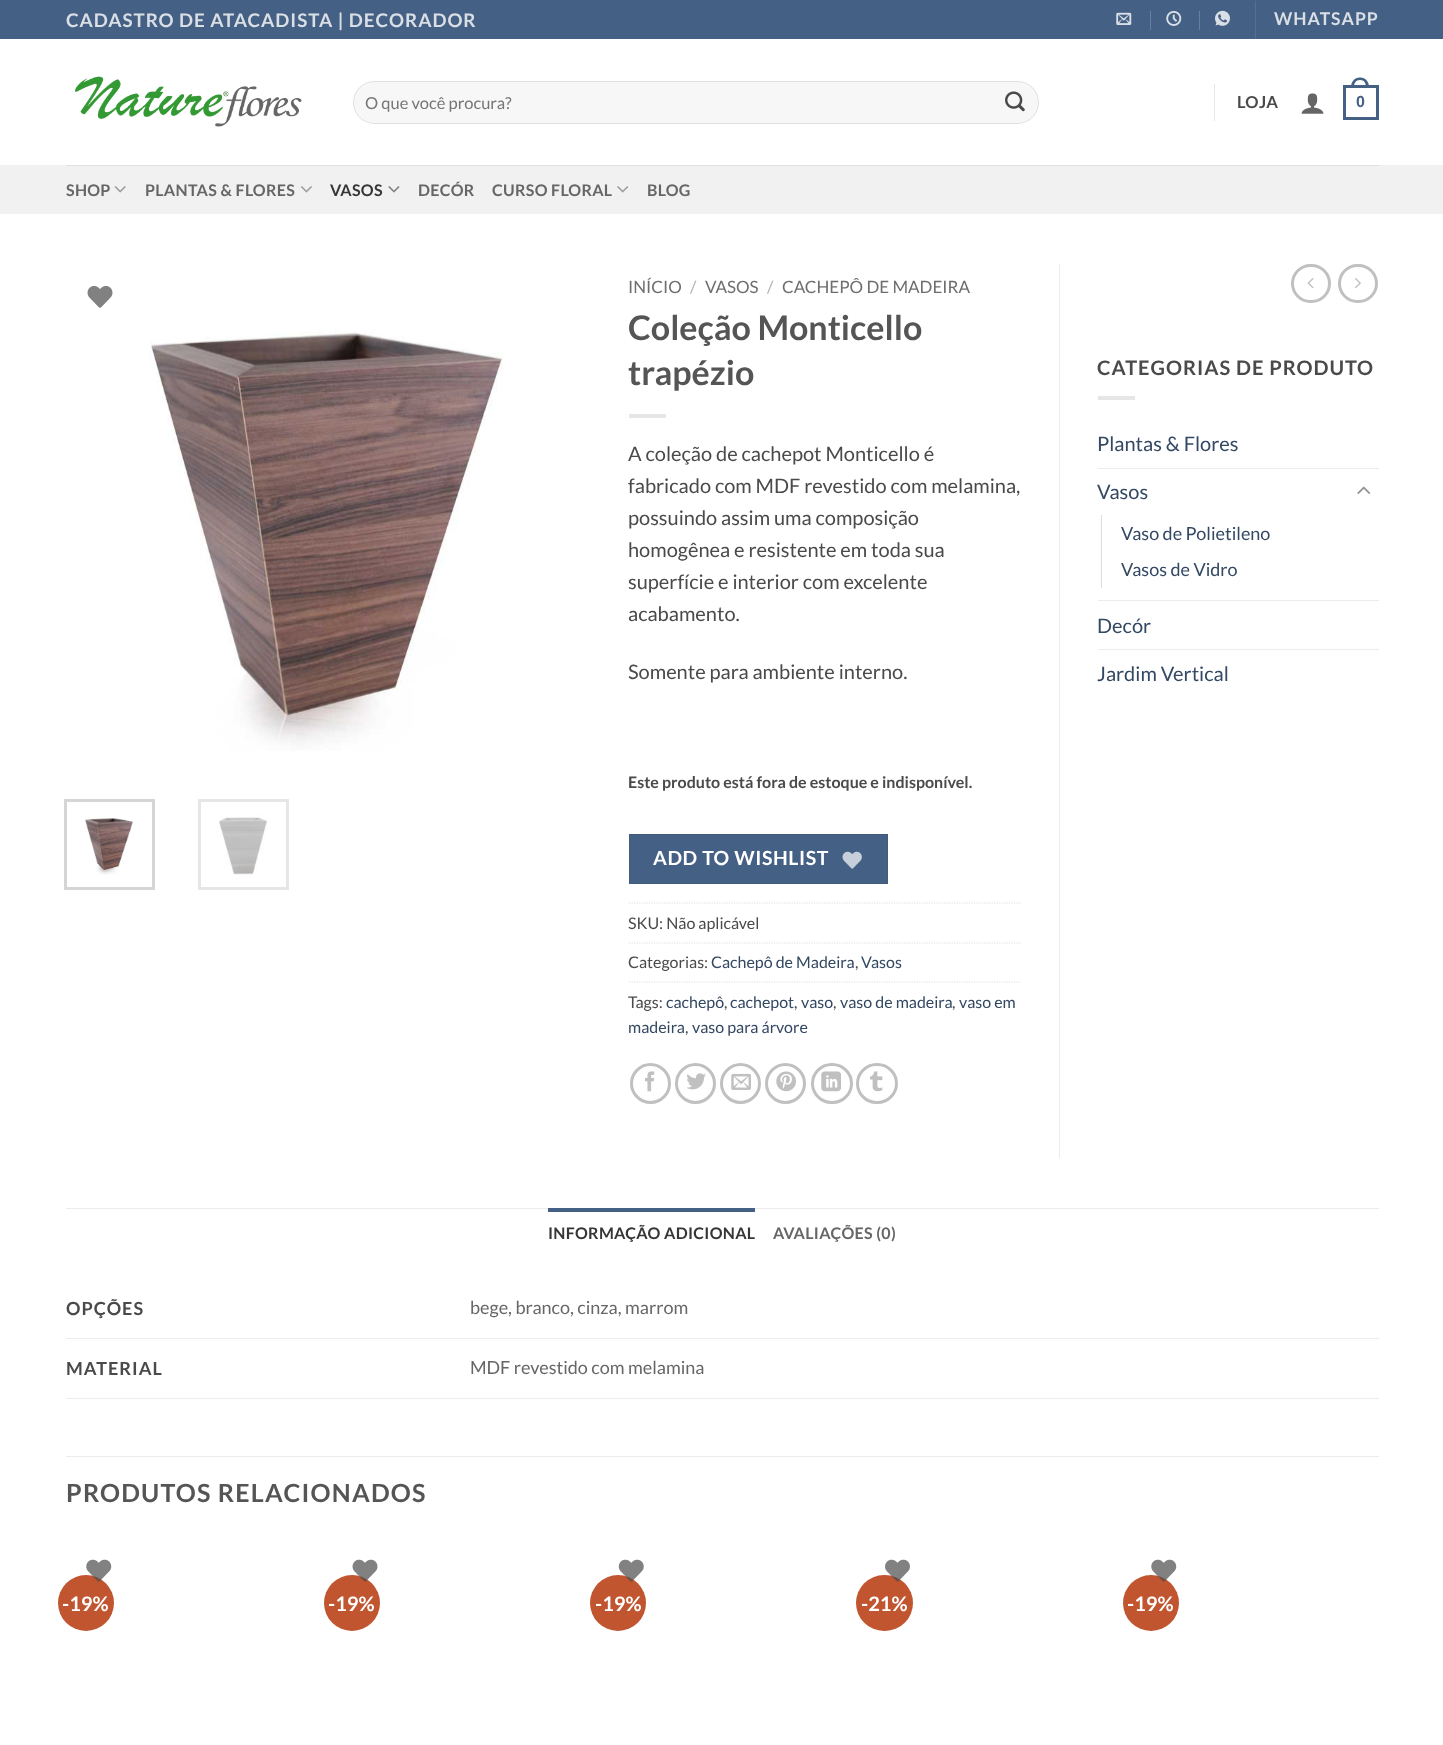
<svg xmlns="http://www.w3.org/2000/svg" xmlns:xlink="http://www.w3.org/1999/xlink" width="1443" height="1745" viewBox="0 0 1443 1745">
<style>
.cls-1{font:bold 18.75px Lato;letter-spacing:0.95px;fill:#dadfe6}
.cls-2{font:bold 17.5px Lato;letter-spacing:1px;fill:#dadfe6}
.cls-3{font:16.5px Lato;fill:#757575}
.cls-4{font:bold 16.5px Lato;letter-spacing:0.5px;fill:#4a4a4a}
.cls-5{font:bold 16px Liberation Sans;letter-spacing:0.3px;fill:#446084}
.cls-6{font:bold 16px Lato;letter-spacing:0.3px;fill:#666666}
.cls-7{font:bold 16px Lato;letter-spacing:0.3px;fill:#363636}
.cls-8{font:17px Lato;fill:#6e6e6e}
.cls-9{font:17px Lato;fill:#b2b2b2}
.cls-10{font:bold 34px Lato;fill:#555555}
.cls-11{font:20px Lato;fill:#4a4a4a}
.cls-12{font:bold 16px Lato;fill:#4a4a4a}
.cls-13{font:bold 19.5px Lato;letter-spacing:0.6px;fill:#ffffff}
.cls-14{font:16px Lato;fill:#4a4a4a}
.cls-15{font:16px Lato;fill:#334862}
.cls-16{font:bold 20px Lato;letter-spacing:1px;fill:#4a4a4a}
.cls-17{font:20px Lato;fill:#334862}
.cls-18{font:18px Lato;fill:#334862}
.cls-19{font:bold 18px Lato;letter-spacing:1px;fill:#4a4a4a}
.cls-20{font:18px Lato;fill:#666666}
.cls-21{font:bold 25px Lato;letter-spacing:1.25px;fill:#555555}
.cls-22{font:bold 20px Lato;fill:#ffffff}
</style>
<rect width="100%" height="100%" fill="#ffffff"/>
<rect fill="#446084" x="0" y="0" width="1443" height="39"/>
<image xlink:href="image0.png" x="1116" y="12" width="16" height="13"/>
<rect fill="#69809d" x="1150" y="11" width="1" height="19"/>
<image xlink:href="image1.png" x="1166" y="10" width="16" height="16"/>
<rect fill="#69809d" x="1199" y="11" width="1" height="19"/>
<image xlink:href="image2.png" x="1215" y="10" width="15" height="16"/>
<rect fill="#577090" x="1255" y="1" width="1" height="38"/>
<image xlink:href="image3.png" x="75" y="76" width="227" height="51"/>
<rect fill="#f7f7f7" x="353" y="81" width="686" height="43" rx="21.5"/>
<rect fill="none" stroke="#000000" stroke-opacity="0.09" x="353.5" y="81.5" width="685" height="42" rx="21"/>
<image xlink:href="image4.png" x="1005" y="91" width="20" height="21"/>
<rect fill="#e6e6e6" x="1214" y="84" width="1" height="37"/>
<image xlink:href="image5.png" x="1301" y="93" width="23" height="21"/>
<rect fill="none" stroke="#446084" stroke-width="3" x="1344.5" y="86.5" width="33" height="32"/>
<path fill="#446084" fill-rule="evenodd" d="M1360 77.5C1366 77.5 1369 82 1369 87.5H1351C1351 82 1354 77.5 1360 77.5ZM1360 80C1364.5 80 1366 83.5 1366 87.5H1354C1354 83.5 1355.5 80 1360 80Z"/>
<rect fill="#f1f1f1" x="0" y="165" width="1443" height="49"/>
<rect fill="#e0e0e0" x="66" y="165" width="1313" height="1"/>
<image xlink:href="image6.png" x="114" y="186" width="12" height="7"/>
<image xlink:href="image7.png" x="301" y="186" width="11" height="7"/>
<image xlink:href="image8.png" x="388" y="186" width="12" height="7"/>
<image xlink:href="image9.png" x="617" y="186" width="12" height="7"/>
<image xlink:href="image10.png" x="87" y="285" width="26" height="23"/>
<image xlink:href="image11.png" x="150" y="331" width="353" height="420"/>
<image xlink:href="image12.png" x="85" y="818" width="48" height="57"/>
<rect fill="none" stroke="#d5d5d5" stroke-width="3" x="65.5" y="800.5" width="88" height="88"/>
<image xlink:href="image13.png" x="219" y="815" width="49" height="60"/>
<rect fill="none" stroke="#e6e6e6" stroke-width="3" x="199.5" y="800.5" width="88" height="88"/>
<rect fill="#ececec" x="1059" y="264" width="1" height="894"/>
<rect fill="#e6e6e6" x="629" y="414" width="37" height="4"/>
<rect fill="#446084" stroke="#415b7d" x="629.5" y="834.5" width="258" height="49"/>
<image xlink:href="image14.png" x="842" y="851" width="20" height="18"/>
<path fill="none" stroke="#dddddd" stroke-width="1.2" stroke-dasharray="1.25 1.25" d="M629 903H1021"/>
<path fill="none" stroke="#dddddd" stroke-width="1.2" stroke-dasharray="1.25 1.25" d="M629 943H1021"/>
<path fill="none" stroke="#dddddd" stroke-width="1.2" stroke-dasharray="1.25 1.25" d="M629 982H1021"/>
<circle fill="none" stroke="#c0c0c0" stroke-width="3" cx="650.5" cy="1083.5" r="19"/>
<image xlink:href="image15.png" x="645" y="1071" width="10" height="21"/>
<circle fill="none" stroke="#c0c0c0" stroke-width="3" cx="695.5" cy="1083.5" r="19"/>
<image xlink:href="image16.png" x="686" y="1073" width="20" height="17"/>
<circle fill="none" stroke="#c0c0c0" stroke-width="3" cx="740.5" cy="1083.5" r="19"/>
<image xlink:href="image17.png" x="731" y="1073" width="20" height="17"/>
<circle fill="none" stroke="#c0c0c0" stroke-width="3" cx="785.5" cy="1083.5" r="19"/>
<image xlink:href="image18.png" x="776" y="1071" width="20" height="21"/>
<rect fill="none" stroke="#c0c0c0" stroke-width="3" x="812.5" y="1064.5" width="39" height="38" rx="19"/>
<image xlink:href="image19.png" x="821" y="1071" width="20" height="21"/>
<rect fill="none" stroke="#c0c0c0" stroke-width="3" x="857.5" y="1064.5" width="39" height="38" rx="19"/>
<image xlink:href="image20.png" x="870" y="1071" width="13" height="21"/>
<rect fill="none" stroke="#c0c0c0" stroke-width="3" x="1292.5" y="265.5" width="37" height="36" rx="18"/>
<image xlink:href="image21.png" x="1307" y="278" width="7" height="11"/>
<rect fill="none" stroke="#c0c0c0" stroke-width="3" x="1339.5" y="265.5" width="37" height="36" rx="18"/>
<image xlink:href="image22.png" x="1355" y="278" width="6" height="11"/>
<rect fill="#e6e6e6" x="1098" y="396" width="37" height="4"/>
<rect fill="#ececec" x="1098" y="468" width="281" height="1"/>
<image xlink:href="image23.png" x="1357" y="486" width="14" height="8"/>
<rect fill="#dddddd" x="1101" y="515" width="1" height="73"/>
<rect fill="#ececec" x="1098" y="600" width="281" height="1"/>
<rect fill="#ececec" x="1098" y="649" width="281" height="1"/>
<rect fill="#ececec" x="66" y="1208" width="1313" height="1"/>
<rect fill="#446084" x="548" y="1208" width="207" height="4"/>
<rect fill="#ececec" x="66" y="1338" width="1313" height="1"/>
<rect fill="#ececec" x="66" y="1398" width="1313" height="1"/>
<rect fill="#ececec" x="66" y="1456" width="1313" height="1"/>
<circle fill="#c05530" cx="86" cy="1603" r="28"/>
<image xlink:href="image24.png" x="86" y="1559" width="26" height="23"/>
<circle fill="#c05530" cx="352" cy="1603" r="28"/>
<image xlink:href="image25.png" x="352" y="1559" width="26" height="23"/>
<circle fill="#c05530" cx="618" cy="1603" r="28"/>
<image xlink:href="image26.png" x="618" y="1559" width="26" height="23"/>
<rect fill="#c05530" x="856" y="1575" width="57" height="56" rx="28"/>
<image xlink:href="image27.png" x="885" y="1559" width="25" height="23"/>
<circle fill="#c05530" cx="1151" cy="1603" r="28"/>
<image xlink:href="image24.png" x="1151" y="1559" width="26" height="23"/>
<text class="cls-1" x="66" y="27">CADASTRO DE ATACADISTA | DECORADOR</text>
<text class="cls-2" x="1274" y="25">WHATSAPP</text>
<text class="cls-3" x="365" y="109">O que você procura?</text>
<text class="cls-4" x="1237" y="108">LOJA</text>
<text class="cls-5" x="1356" y="107">0</text>
<text class="cls-6" x="66" y="196">SHOP</text>
<text class="cls-6" x="145" y="196">PLANTAS &amp; FLORES</text>
<text class="cls-7" x="330" y="196">VASOS</text>
<text class="cls-6" x="418" y="196">DECÓR</text>
<text class="cls-6" x="492" y="196">CURSO FLORAL</text>
<text class="cls-6" x="647" y="196">BLOG</text>
<text class="cls-8" x="628" y="293">INÍCIO</text>
<text class="cls-9" x="690" y="293">/</text>
<text class="cls-8" x="705" y="293">VASOS</text>
<text class="cls-9" x="767" y="293">/</text>
<text class="cls-8" x="782" y="293">CACHEPÔ DE MADEIRA</text>
<text class="cls-10"><tspan x="628" y="340">Coleção Monticello</tspan><tspan x="628" y="385">trapézio</tspan></text>
<text class="cls-11"><tspan x="628" y="461">A coleção de cachepot Monticello é</tspan><tspan x="628" y="493">fabricado com MDF revestido com melamina,</tspan><tspan x="628" y="525">possuindo assim uma composição</tspan><tspan x="628" y="557">homogênea e resistente em toda sua</tspan><tspan x="628" y="589">superfície e interior com excelente</tspan><tspan x="628" y="621">acabamento.</tspan></text>
<text class="cls-11" x="628" y="679">Somente para ambiente interno.</text>
<text class="cls-12" x="628" y="788">Este produto está fora de estoque e indisponível.</text>
<text class="cls-13" x="653" y="865">ADD TO WISHLIST</text>
<text class="cls-14" x="628" y="929">SKU: Não aplicável</text>
<text class="cls-14" x="628" y="968">Categorias:</text>
<text class="cls-15" x="711" y="968">Cachepô de Madeira</text>
<text class="cls-14" x="855" y="968">,</text>
<text class="cls-15" x="861" y="968">Vasos</text>
<text class="cls-14" x="628" y="1008">Tags:</text>
<text class="cls-15" x="666" y="1008">cachepô</text>
<text class="cls-14" x="724" y="1008">,</text>
<text class="cls-15" x="730" y="1008">cachepot</text>
<text class="cls-14" x="794" y="1008">,</text>
<text class="cls-15" x="801" y="1008">vaso</text>
<text class="cls-14" x="833" y="1008">,</text>
<text class="cls-15" x="840" y="1008">vaso de madeira</text>
<text class="cls-14" x="952" y="1008">,</text>
<text class="cls-15" x="959" y="1008">vaso em</text>
<text class="cls-15" x="628" y="1033">madeira</text>
<text class="cls-14" x="685" y="1033">,</text>
<text class="cls-15" x="692" y="1033">vaso para árvore</text>
<text class="cls-16" x="1097" y="375">CATEGORIAS DE PRODUTO</text>
<text class="cls-17" x="1097" y="451">Plantas &amp; Flores</text>
<text class="cls-17" x="1097" y="499">Vasos</text>
<text class="cls-18" x="1121" y="540">Vaso de Polietileno</text>
<text class="cls-18" x="1121" y="576">Vasos de Vidro</text>
<text class="cls-17" x="1097" y="633">Decór</text>
<text class="cls-17" x="1097" y="681">Jardim Vertical</text>
<text class="cls-7" x="548" y="1239">INFORMAÇÃO ADICIONAL</text>
<text class="cls-6" x="773" y="1239">AVALIAÇÕES (0)</text>
<text class="cls-19" x="66" y="1315">OPÇÕES</text>
<text class="cls-20" x="470" y="1314">bege, branco, cinza, marrom</text>
<text class="cls-19" x="66" y="1375">MATERIAL</text>
<text class="cls-20" x="470" y="1374">MDF revestido com melamina</text>
<text class="cls-21" x="66" y="1502">PRODUTOS RELACIONADOS</text>
<text class="cls-22" x="62" y="1611">-19%</text>
<text class="cls-22" x="328" y="1611">-19%</text>
<text class="cls-22" x="595" y="1611">-19%</text>
<text class="cls-22" x="861" y="1611">-21%</text>
<text class="cls-22" x="1127" y="1611">-19%</text>
</svg>
